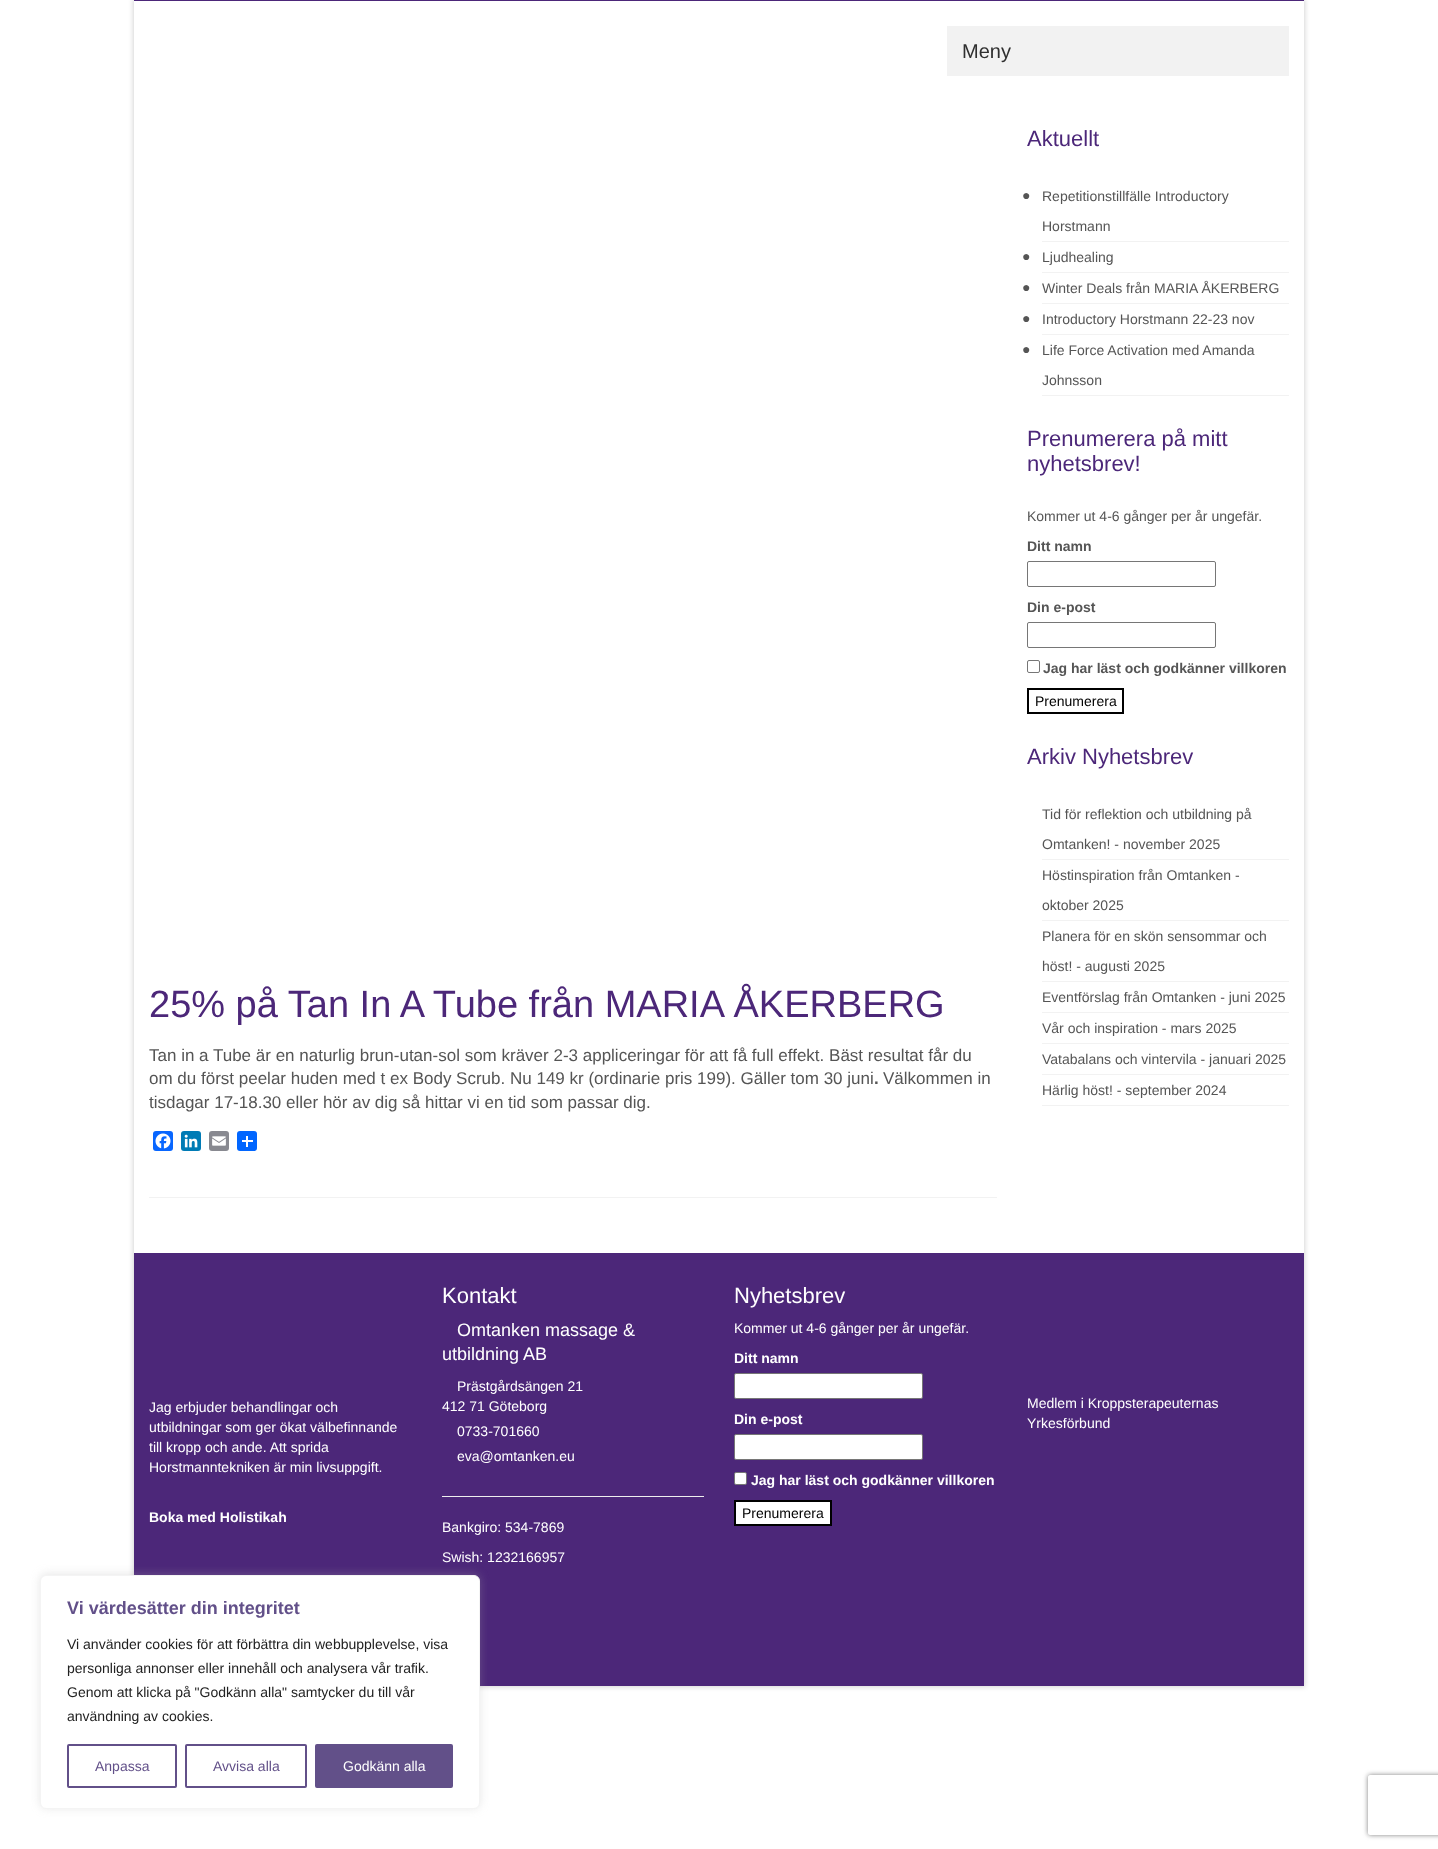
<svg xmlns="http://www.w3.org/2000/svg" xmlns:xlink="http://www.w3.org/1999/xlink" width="1438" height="1849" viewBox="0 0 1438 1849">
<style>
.cls-1{font:20px Liberation Sans;fill:#303030}
.cls-2{font:38px Liberation Sans;fill:#4c2779}
.cls-3{font:17px Liberation Sans;fill:#555555}
.cls-4{font:bold 17px Liberation Sans;fill:#555555}
.cls-5{font:22px Liberation Sans;fill:#4c2779}
.cls-6{font:14px Liberation Serif;fill:#555555}
.cls-7{font:14px Liberation Sans;fill:#555555}
.cls-8{font:bold 14px Liberation Sans;fill:#555555}
.cls-9{font:14px Liberation Sans;fill:#000000}
.cls-10{font:14px Liberation Sans;fill:#ffffff}
.cls-11{font:bold 14px Liberation Sans;fill:#ffffff}
.cls-12{font:22px Liberation Sans;fill:#ffffff}
.cls-13{font:18px Liberation Sans;fill:#ffffff}
.cls-14{font:bold 18px Liberation Sans;fill:#625089}
.cls-15{font:14px Liberation Sans;fill:#212121}
.cls-16{font:14px Liberation Sans;fill:#625089}
</style>
<defs>
<clipPath id="clip1"><path d="M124 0H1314V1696H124ZM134 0H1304V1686H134Z" clip-rule="evenodd"/></clipPath>
<clipPath id="clip2"><path d="M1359 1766H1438V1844H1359ZM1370 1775H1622C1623 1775 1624 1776 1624 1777V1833C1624 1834 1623 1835 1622 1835H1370C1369 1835 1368 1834 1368 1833V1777C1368 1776 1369 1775 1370 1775Z" clip-rule="evenodd"/></clipPath>
</defs>
<rect width="100%" height="100%" fill="#ffffff"/>
<g clip-path="url(#clip1)">
<rect fill="#000000" fill-opacity="0.16" filter="blur(2.5px)" x="133" y="-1" width="1172" height="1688"/>
</g>
<rect fill="#4c2779" x="134" y="0" width="1170" height="1"/>
<rect fill="#f2f2f2" x="947" y="26" width="342" height="50"/>
<rect fill="#0866ff" x="153" y="1131" width="20" height="20" rx="3"/>
<image xlink:href="image0.png" x="155" y="1133" width="16" height="16"/>
<rect fill="#007bb5" x="181" y="1131" width="20" height="20" rx="3"/>
<image xlink:href="image1.png" x="184" y="1134" width="14" height="14"/>
<rect fill="#888990" x="209" y="1131" width="20" height="20" rx="3"/>
<image xlink:href="image2.png" x="212" y="1136" width="14" height="10"/>
<rect fill="#0166ff" x="237" y="1131" width="20" height="20" rx="3"/>
<rect fill="#ffffff" x="246" y="1136" width="2" height="11"/>
<rect fill="#ffffff" x="242" y="1140" width="11" height="2"/>
<rect fill="#f2f2f2" x="149" y="1197" width="848" height="1"/>
<rect fill="#f2f2f2" x="1042" y="241" width="247" height="1"/>
<rect fill="#f2f2f2" x="1042" y="272" width="247" height="1"/>
<rect fill="#f2f2f2" x="1042" y="303" width="247" height="1"/>
<rect fill="#f2f2f2" x="1042" y="334" width="247" height="1"/>
<rect fill="#f2f2f2" x="1042" y="395" width="247" height="1"/>
<rect fill="none" stroke="#767676" x="1027.5" y="561.5" width="188" height="25" rx="1.5"/>
<rect fill="none" stroke="#767676" x="1027.5" y="622.5" width="188" height="25" rx="1.5"/>
<rect fill="none" stroke="#767676" x="1027.5" y="660.5" width="12" height="12" rx="1.5"/>
<rect fill="none" stroke="#000000" stroke-width="2" x="1028" y="689" width="95" height="24"/>
<rect fill="#f2f2f2" x="1042" y="859" width="247" height="1"/>
<rect fill="#f2f2f2" x="1042" y="920" width="247" height="1"/>
<rect fill="#f2f2f2" x="1042" y="981" width="247" height="1"/>
<rect fill="#f2f2f2" x="1042" y="1012" width="247" height="1"/>
<rect fill="#f2f2f2" x="1042" y="1043" width="247" height="1"/>
<rect fill="#f2f2f2" x="1042" y="1074" width="247" height="1"/>
<rect fill="#f2f2f2" x="1042" y="1105" width="247" height="1"/>
<rect fill="#4c2779" x="134" y="1253" width="1170" height="433"/>
<rect fill="#eeeeee" x="442" y="1496" width="262" height="1"/>
<rect fill="#ffffff" stroke="#767676" x="734.5" y="1373.5" width="188" height="25" rx="1.5"/>
<rect fill="#ffffff" stroke="#767676" x="734.5" y="1434.5" width="188" height="25" rx="1.5"/>
<rect fill="#ffffff" stroke="#767676" x="734.5" y="1472.5" width="12" height="12" rx="1.5"/>
<rect fill="#ffffff" stroke="#000000" stroke-width="2" x="735" y="1501" width="96" height="24"/>
<rect fill="#acabab" fill-opacity="0.3" filter="blur(5px)" x="40" y="1574" width="440" height="234" rx="6"/>
<rect fill="#ffffff" stroke="#f4f4f4" x="40.5" y="1575.5" width="439" height="233" rx="5.5"/>
<rect fill="none" stroke="#625089" stroke-width="2" x="68" y="1745" width="108" height="42" rx="1"/>
<rect fill="none" stroke="#625089" stroke-width="2" x="186" y="1745" width="120" height="42" rx="1"/>
<rect fill="#625089" stroke="#625089" stroke-width="2" x="316" y="1745" width="136" height="42" rx="1"/>
<g clip-path="url(#clip2)">
<rect fill="#808080" filter="blur(2.5px)" x="1368" y="1775" width="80" height="60" rx="2"/>
</g>
<text class="cls-1" x="962" y="58">Meny</text>
<text class="cls-2" x="149" y="1017">25% på Tan In A Tube från MARIA ÅKERBERG</text>
<text class="cls-3"><tspan x="149" y="1061">Tan in a Tube är en naturlig brun-utan-sol som kräver 2-3 appliceringar för att få full effekt. Bäst resultat får du</tspan><tspan x="149" y="1084">om du först peelar huden med t ex Body Scrub. Nu 149 kr (ordinarie pris 199). Gäller tom 30 juni</tspan></text>
<text class="cls-4" x="874" y="1084">.</text>
<text class="cls-3" x="883" y="1084">Välkommen in</text>
<text class="cls-3" x="149" y="1108">tisdagar 17-18.30 eller hör av dig så hittar vi en tid som passar dig.</text>
<text class="cls-5" x="1027" y="146">Aktuellt</text>
<text class="cls-6" x="1022" y="200">●</text>
<text class="cls-7" x="1042" y="201">Repetitionstillfälle Introductory</text>
<text class="cls-7" x="1042" y="231">Horstmann</text>
<text class="cls-6" x="1022" y="261">●</text>
<text class="cls-7" x="1042" y="262">Ljudhealing</text>
<text class="cls-6" x="1022" y="292">●</text>
<text class="cls-7" x="1042" y="293">Winter Deals från MARIA ÅKERBERG</text>
<text class="cls-6" x="1022" y="323">●</text>
<text class="cls-7" x="1042" y="324">Introductory Horstmann 22-23 nov</text>
<text class="cls-6" x="1022" y="354">●</text>
<text class="cls-7" x="1042" y="355">Life Force Activation med Amanda</text>
<text class="cls-7" x="1042" y="385">Johnsson</text>
<text class="cls-5"><tspan x="1027" y="446">Prenumerera på mitt</tspan><tspan x="1027" y="471">nyhetsbrev!</tspan></text>
<text class="cls-7" x="1027" y="521">Kommer ut 4-6 gånger per år ungefär.</text>
<text class="cls-8" x="1027" y="551">Ditt namn</text>
<text class="cls-8" x="1027" y="612">Din e-post</text>
<text class="cls-8" x="1043" y="673">Jag har läst och godkänner villkoren</text>
<text class="cls-9" x="1035" y="706">Prenumerera</text>
<text class="cls-5" x="1027" y="764">Arkiv Nyhetsbrev</text>
<text class="cls-7" x="1042" y="819">Tid för reflektion och utbildning på</text>
<text class="cls-7" x="1042" y="849">Omtanken! - november 2025</text>
<text class="cls-7" x="1042" y="880">Höstinspiration från Omtanken -</text>
<text class="cls-7" x="1042" y="910">oktober 2025</text>
<text class="cls-7" x="1042" y="941">Planera för en skön sensommar och</text>
<text class="cls-7" x="1042" y="971">höst! - augusti 2025</text>
<text class="cls-7" x="1042" y="1002">Eventförslag från Omtanken - juni 2025</text>
<text class="cls-7" x="1042" y="1033">Vår och inspiration - mars 2025</text>
<text class="cls-7" x="1042" y="1064">Vatabalans och vintervila - januari 2025</text>
<text class="cls-7" x="1042" y="1095">Härlig höst! - september 2024</text>
<text class="cls-10"><tspan x="149" y="1412">Jag erbjuder behandlingar och</tspan><tspan x="149" y="1432">utbildningar som ger ökat välbefinnande</tspan><tspan x="149" y="1452">till kropp och ande. Att sprida</tspan><tspan x="149" y="1472">Horstmanntekniken är min livsuppgift.</tspan></text>
<text class="cls-11" x="149" y="1522">Boka med Holistikah</text>
<text class="cls-12" x="442" y="1303">Kontakt</text>
<text class="cls-13" x="457" y="1336">Omtanken massage &amp;</text>
<text class="cls-13" x="442" y="1360">utbildning AB</text>
<text class="cls-10" x="457" y="1391">Prästgårdsängen 21</text>
<text class="cls-10" x="442" y="1411">412 71 Göteborg</text>
<text class="cls-10"><tspan x="457" y="1436">0733-701660</tspan><tspan x="457" y="1461">eva@omtanken.eu</tspan></text>
<text class="cls-10" x="442" y="1532">Bankgiro: 534-7869</text>
<text class="cls-10" x="442" y="1562">Swish: 1232166957</text>
<text class="cls-12" x="734" y="1303">Nyhetsbrev</text>
<text class="cls-10" x="734" y="1333">Kommer ut 4-6 gånger per år ungefär.</text>
<text class="cls-11" x="734" y="1363">Ditt namn</text>
<text class="cls-11" x="734" y="1424">Din e-post</text>
<text class="cls-11" x="751" y="1485">Jag har läst och godkänner villkoren</text>
<text class="cls-9" x="742" y="1518">Prenumerera</text>
<text class="cls-10"><tspan x="1027" y="1408">Medlem i Kroppsterapeuternas</tspan><tspan x="1027" y="1428">Yrkesförbund</tspan></text>
<text class="cls-14" x="67" y="1614">Vi värdesätter din integritet</text>
<text class="cls-15"><tspan x="67" y="1649">Vi använder cookies för att förbättra din webbupplevelse, visa</tspan><tspan x="67" y="1673">personliga annonser eller innehåll och analysera vår trafik.</tspan><tspan x="67" y="1697">Genom att klicka på "Godkänn alla" samtycker du till vår</tspan><tspan x="67" y="1721">användning av cookies.</tspan></text>
<text class="cls-16" x="95" y="1771">Anpassa</text>
<text class="cls-16" x="213" y="1771">Avvisa alla</text>
<text class="cls-10" x="343" y="1771">Godkänn alla</text>
</svg>
